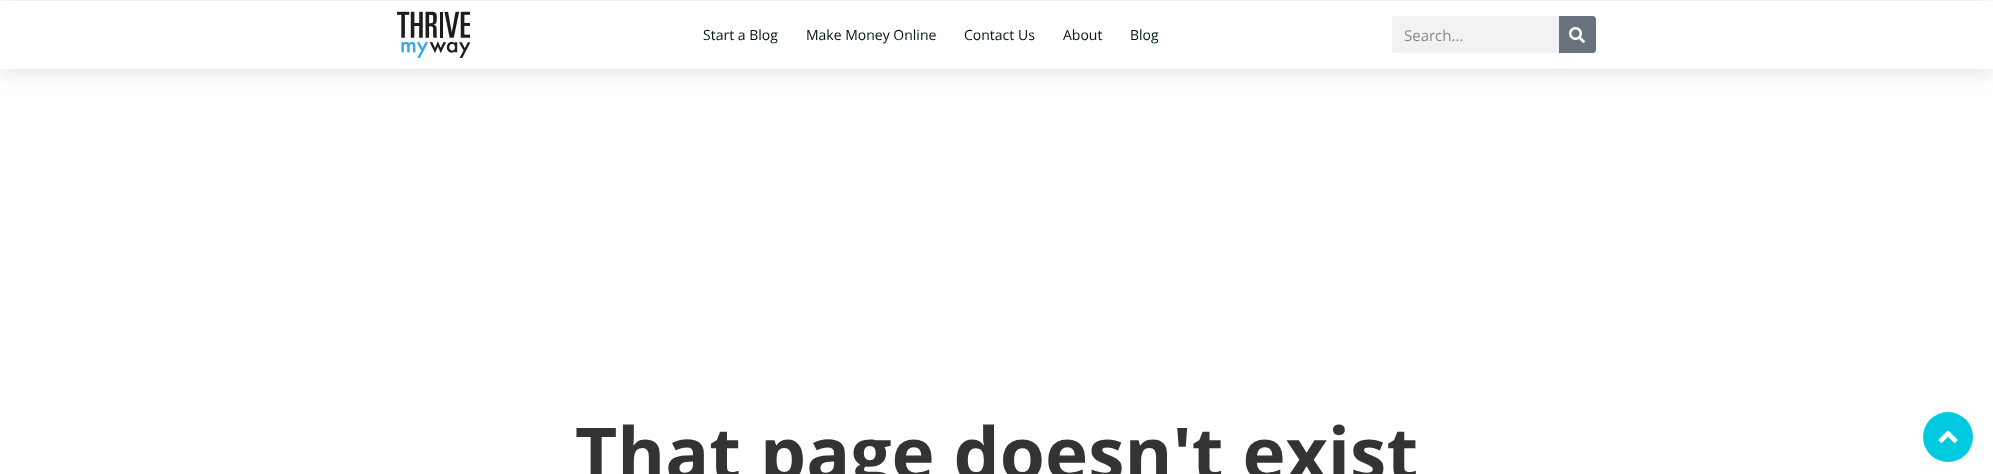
<svg xmlns="http://www.w3.org/2000/svg" xmlns:xlink="http://www.w3.org/1999/xlink" width="1993" height="474" viewBox="0 0 1993 474">
<style>
.cls-1{font:14px Open Sans;fill:#001214}
.cls-2{font:15px Open Sans;fill:#868a8e}
.cls-3{font:bold 73px Open Sans;fill:#333333}
</style>
<defs>
<clipPath id="clip1"><path d="M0 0H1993V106H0ZM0 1H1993V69H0Z" clip-rule="evenodd"/></clipPath>
</defs>
<rect width="100%" height="100%" fill="#ffffff"/>
<g clip-path="url(#clip1)">
<rect fill="#000000" fill-opacity="0.15" filter="blur(12px)" x="0" y="1" width="1993" height="68"/>
</g>
<image xlink:href="image0.png" x="397" y="11" width="73" height="47"/>
<rect fill="#f1f2f3" x="1392" y="16" width="204" height="37" rx="3"/>
<path fill="#69727d" d="M1559 16H1593C1594.5 16 1596 17.5 1596 19V50C1596 51.5 1594.5 53 1593 53H1559Z"/>
<image xlink:href="image1.png" x="1569" y="27" width="16" height="16"/>
<circle fill="#00c9e0" cx="1948" cy="437" r="25"/>
<image xlink:href="image2.png" x="1938" y="430" width="20" height="13"/>
<text class="cls-1" x="703" y="40">Start a Blog</text>
<text class="cls-1" x="806" y="40">Make Money Online</text>
<text class="cls-1" x="964" y="40">Contact Us</text>
<text class="cls-1" x="1063" y="40">About</text>
<text class="cls-1" x="1130" y="40">Blog</text>
<text class="cls-2" x="1404" y="41">Search...</text>
<text class="cls-3" x="575" y="480">That page doesn't exist</text>
</svg>
